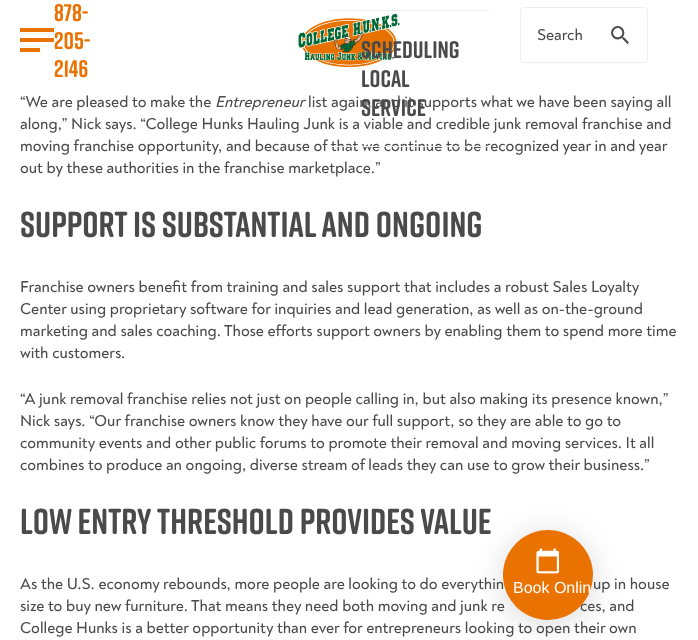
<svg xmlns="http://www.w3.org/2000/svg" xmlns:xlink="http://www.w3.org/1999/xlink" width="698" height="640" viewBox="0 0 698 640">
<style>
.cls-1{font:bold 24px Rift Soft;fill:#ea7200}
.cls-2{font:500 16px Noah;fill:#4a4a4a}
.cls-3{font:bold 24px Rift Soft;fill:#4a4a4a}
.cls-4{font:italic 500 16px Noah;fill:#4a4a4a}
.cls-5{font:bold 36px Rift Soft;fill:#4a4a4a}
.cls-6{font:16px Liberation Sans;fill:#ffffff}
</style>
<rect width="100%" height="100%" fill="#ffffff"/>
<rect fill="#ea7200" x="20" y="38" width="34" height="4"/>
<rect fill="#ea7200" x="20" y="28" width="34" height="4"/>
<rect fill="#ea7200" x="20" y="48" width="20" height="4"/>
<image xlink:href="image0.png" x="298" y="13" width="102" height="54"/>
<rect fill="none" stroke="#eceff3" x="520.5" y="7.5" width="127" height="55" rx="3.5"/>
<image xlink:href="image1.png" x="611" y="26" width="18" height="18"/>
<rect fill="#eceff3" x="331" y="10" width="159" height="1"/>
<rect fill="#000000" fill-opacity="0.15" filter="blur(15px)" x="503" y="534" width="90" height="90" rx="45"/>
<text class="cls-1"><tspan x="54" y="21">878-</tspan><tspan x="54" y="49">205-</tspan><tspan x="54" y="77">2146</tspan></text>
<text class="cls-2" x="537" y="40">Search</text>
<text class="cls-3"><tspan x="361" y="58">Scheduling</tspan><tspan x="361" y="87">Local</tspan></text>
<text class="cls-2" x="20" y="107">“We are pleased to make the</text>
<text class="cls-4" x="215" y="107">Entrepreneur</text>
<text class="cls-2" x="308" y="107">list again, and it supports what we have been saying all</text>
<text class="cls-3" x="361" y="116">Service</text>
<text class="cls-2"><tspan x="20" y="129">along,” Nick says. “College Hunks Hauling Junk is a viable and credible junk removal franchise and</tspan><tspan x="20" y="151">moving franchise opportunity, and because of that we continue to be recognized year in and year</tspan></text>
<rect fill="#eceff3" x="331" y="146" width="159" height="1"/>
<text class="cls-2" x="20" y="173">out by these authorities in the franchise marketplace.”</text>
<text class="cls-5" x="20" y="237">Support is substantial and ongoing</text>
<text class="cls-2"><tspan x="20" y="292">Franchise owners benefit from training and sales support that includes a robust Sales Loyalty</tspan><tspan x="20" y="314">Center using proprietary software for inquiries and lead generation, as well as on-the-ground</tspan><tspan x="20" y="336">marketing and sales coaching. Those efforts support owners by enabling them to spend more time</tspan><tspan x="20" y="358">with customers.</tspan></text>
<text class="cls-2"><tspan x="20" y="404">“A junk removal franchise relies not just on people calling in, but also making its presence known,”</tspan><tspan x="20" y="426">Nick says. “Our franchise owners know they have our full support, so they are able to go to</tspan><tspan x="20" y="448">community events and other public forums to promote their removal and moving services. It all</tspan><tspan x="20" y="470">combines to produce an ongoing, diverse stream of leads they can use to grow their business.”</tspan></text>
<text class="cls-5" x="20" y="534">Low entry threshold provides value</text>
<text class="cls-2" x="20" y="589">As the U.S. economy rebounds, more people are looking to do everythin</text>
<text class="cls-2" x="593" y="589">up in house</text>
<text class="cls-2" x="20" y="611">size to buy new furniture. That means they need both moving and junk re</text>
<text class="cls-2" x="580" y="611">ces, and</text>
<text class="cls-2" x="20" y="633">College Hunks is a better opportunity than ever for entrepreneurs looking to open their own</text>
<circle fill="#ea7200" cx="548" cy="575" r="45"/>
<image xlink:href="image2.png" x="536" y="548" width="23" height="26"/>
<text class="cls-6" x="513" y="593">Book Onlin</text>
</svg>
